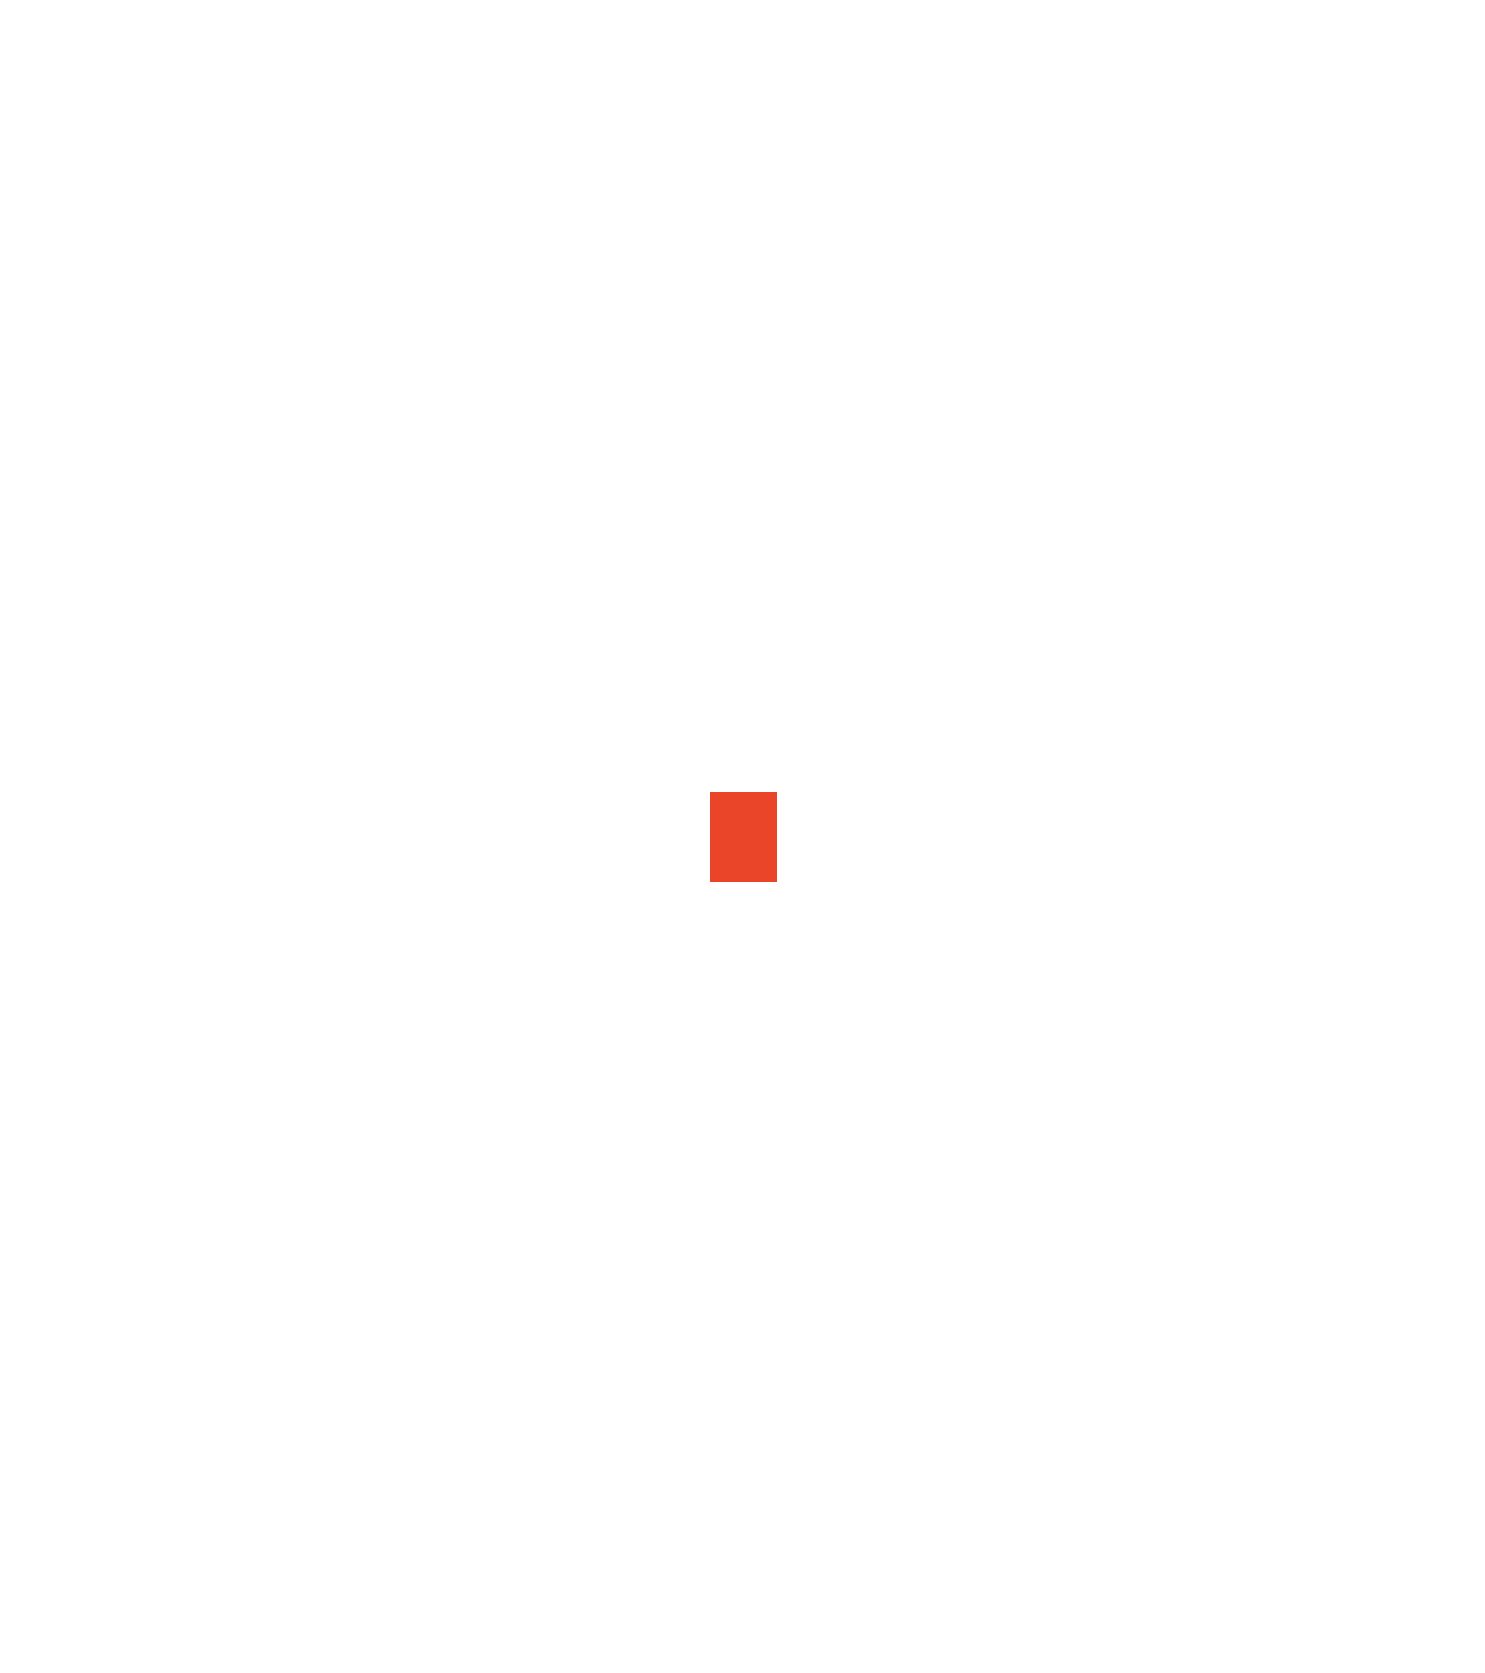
<svg xmlns="http://www.w3.org/2000/svg" xmlns:xlink="http://www.w3.org/1999/xlink" width="1485" height="1673" viewBox="0 0 1485 1673">
<rect width="100%" height="100%" fill="#ffffff"/>
<rect fill="#ea4529" x="710" y="792" width="67" height="90"/>
</svg>
